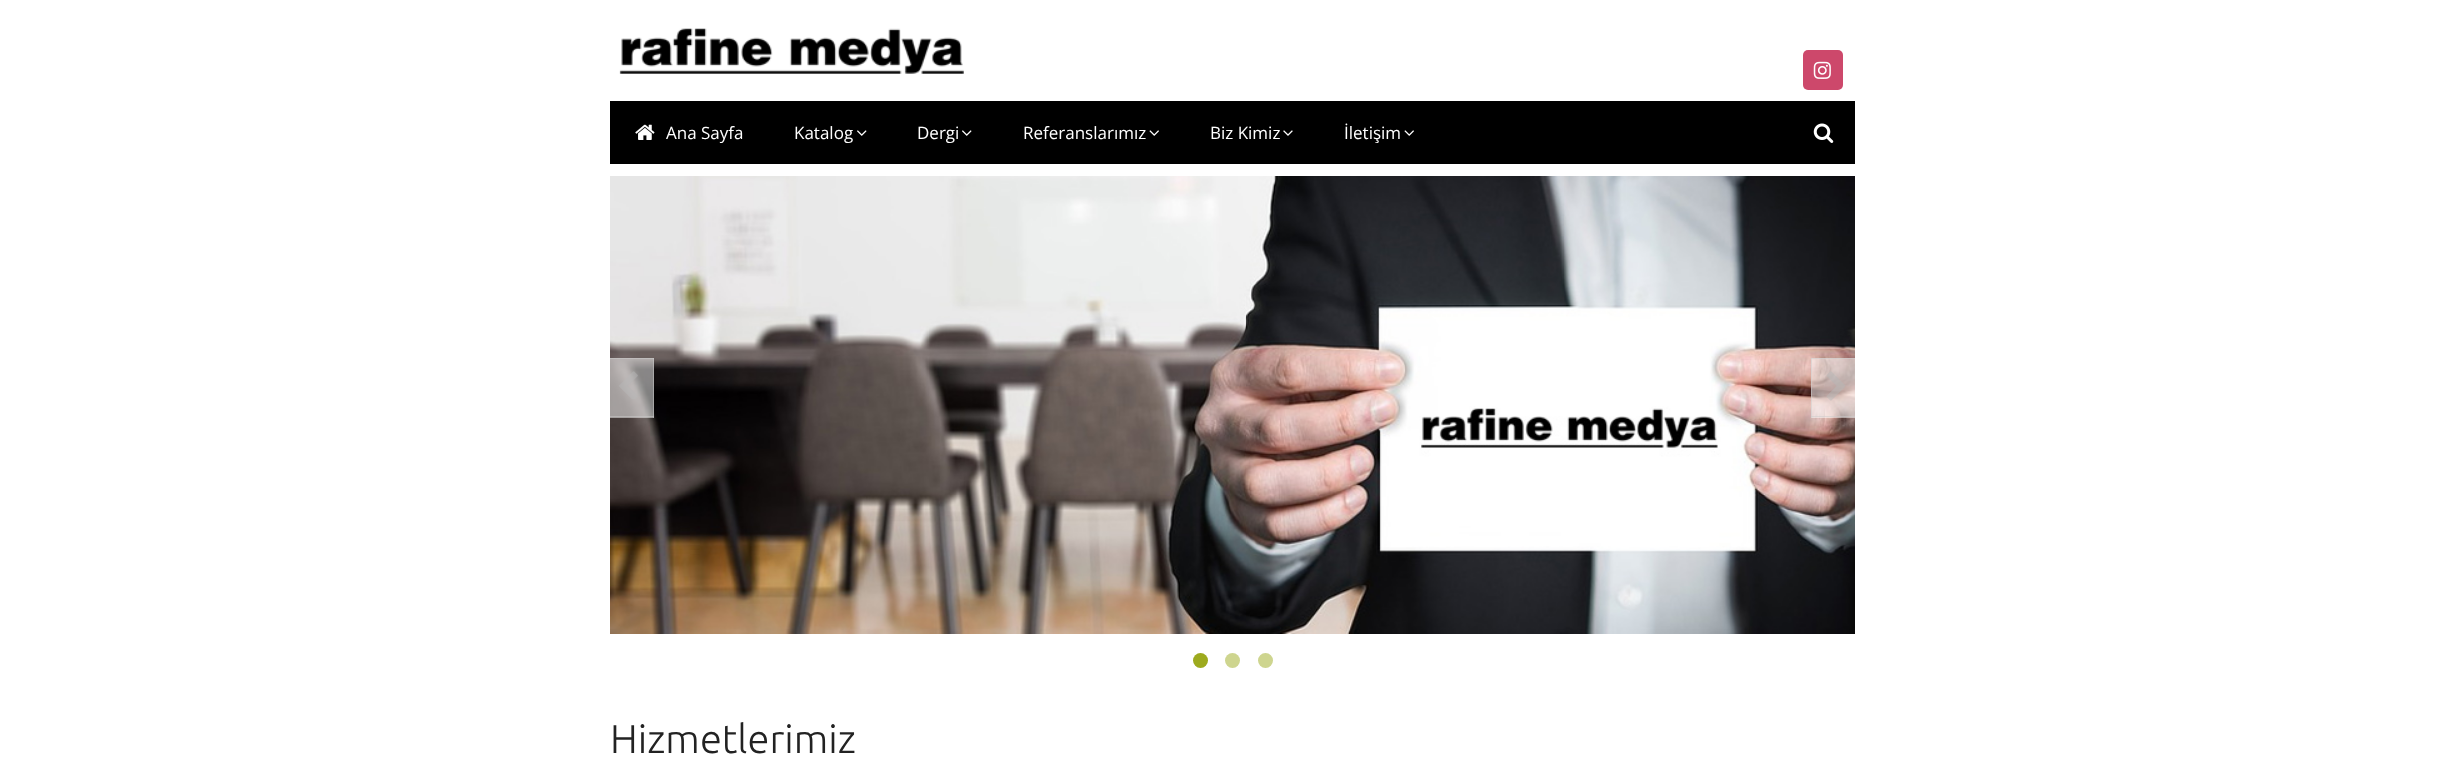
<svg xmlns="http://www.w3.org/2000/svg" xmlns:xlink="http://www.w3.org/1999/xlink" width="2464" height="763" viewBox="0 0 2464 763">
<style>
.cls-1{font:17px Open Sans;fill:#ffffff}
.cls-2{font:300 40px Ubuntu;fill:#222222}
</style>
<rect width="100%" height="100%" fill="#ffffff"/>
<image xlink:href="image0.png" x="619" y="28" width="345" height="46"/>
<rect fill="#cd486b" x="1803" y="50" width="40" height="40" rx="5"/>
<image xlink:href="image1.png" x="1813" y="61" width="18" height="18"/>
<rect fill="#000000" x="610" y="101" width="1245" height="63"/>
<image xlink:href="image2.png" x="635" y="124" width="20" height="16"/>
<image xlink:href="image3.png" x="857" y="130" width="10" height="6"/>
<image xlink:href="image3.png" x="962" y="130" width="10" height="6"/>
<image xlink:href="image4.png" x="1149" y="130" width="10" height="6"/>
<image xlink:href="image5.png" x="1283" y="130" width="10" height="6"/>
<image xlink:href="image4.png" x="1404" y="130" width="10" height="6"/>
<image xlink:href="image6.png" x="1813" y="123" width="21" height="20"/>
<image xlink:href="image7.png" x="610" y="176" width="1245" height="458"/>
<circle fill="#9daa1e" cx="1200.5" cy="660.5" r="7.5"/>
<circle fill="#ced58f" cx="1232.5" cy="660.5" r="7.5"/>
<circle fill="#ced58f" cx="1265.5" cy="660.5" r="7.5"/>
<rect fill="#ffffff" fill-opacity="0.5" x="610" y="358" width="44" height="60"/>
<rect fill="#cccccc" fill-opacity="0.5" x="610" y="358" width="44" height="1"/>
<rect fill="#cccccc" fill-opacity="0.5" x="653" y="358" width="1" height="60"/>
<rect fill="#cccccc" fill-opacity="0.5" x="610" y="416" width="44" height="1"/>
<image xlink:href="image8.png" x="619" y="371" width="19" height="28"/>
<rect fill="#ffffff" fill-opacity="0.5" x="1811" y="358" width="44" height="60"/>
<rect fill="#cccccc" fill-opacity="0.5" x="1811" y="358" width="44" height="1"/>
<rect fill="#cccccc" fill-opacity="0.5" x="1811" y="416" width="44" height="1"/>
<rect fill="#cccccc" fill-opacity="0.5" x="1811" y="358" width="1" height="60"/>
<image xlink:href="image9.png" x="1826" y="371" width="19" height="30"/>
<text class="cls-1" x="666" y="139">Ana Sayfa</text>
<text class="cls-1" x="794" y="139">Katalog</text>
<text class="cls-1" x="917" y="139">Dergi</text>
<text class="cls-1" x="1023" y="139">Referanslarımız</text>
<text class="cls-1" x="1210" y="139">Biz Kimiz</text>
<text class="cls-1" x="1344" y="139">İletişim</text>
<text class="cls-2" x="610" y="753">Hizmetlerimiz</text>
</svg>
